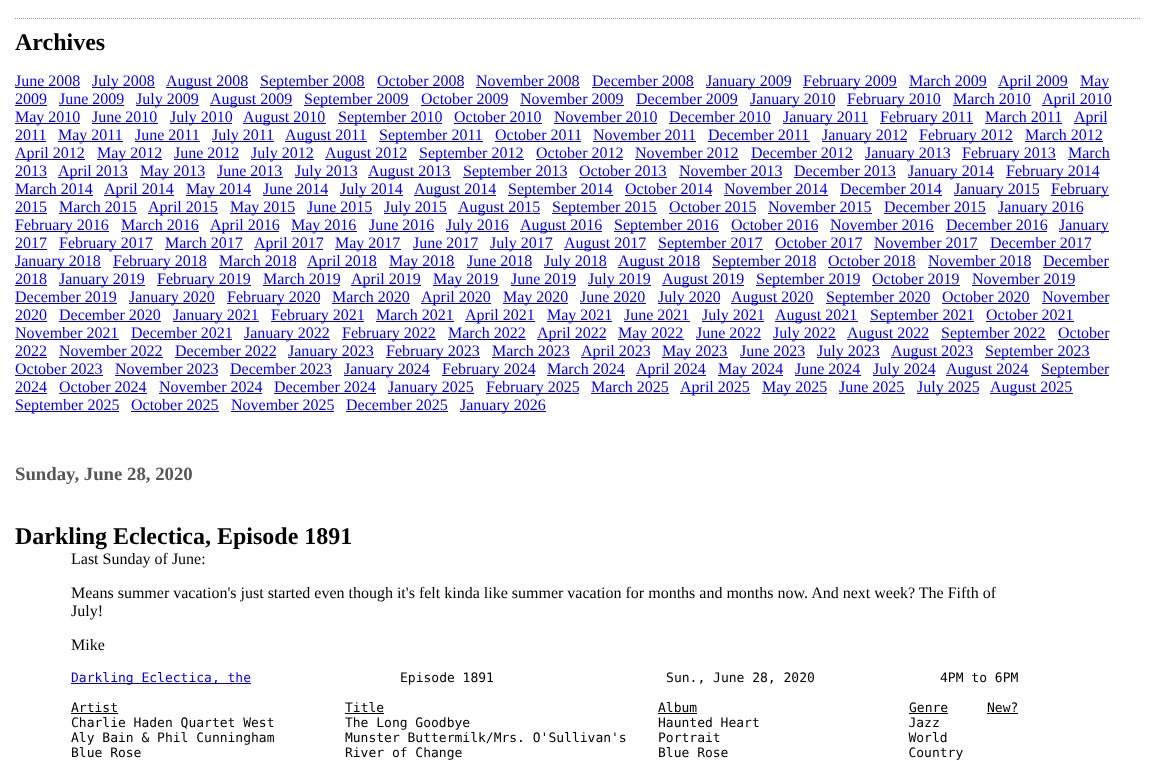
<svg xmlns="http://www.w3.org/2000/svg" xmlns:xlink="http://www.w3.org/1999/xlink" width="1156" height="767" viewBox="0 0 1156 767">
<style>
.cls-1{font:bold 24px Liberation Serif;fill:#000000}
.cls-2{font:16px Liberation Serif;fill:#0000ee}
.cls-3{font:bold 18.75px Liberation Serif;fill:#555555}
.cls-4{font:16px Liberation Serif;fill:#000000}
.cls-5{font:13px DejaVu Sans Mono;fill:#0000ee}
.cls-6{font:13px DejaVu Sans Mono;fill:#000000}
</style>
<rect width="100%" height="100%" fill="#ffffff"/>
<path fill="none" stroke="#999999" stroke-dasharray="1 1" d="M15 18.5H1141"/>
<rect fill="#0000ee" x="15" y="87" width="65" height="1"/>
<rect fill="#0000ee" x="92" y="87" width="63" height="1"/>
<rect fill="#0000ee" x="166" y="87" width="82" height="1"/>
<rect fill="#0000ee" x="260" y="87" width="105" height="1"/>
<rect fill="#0000ee" x="377" y="87" width="87" height="1"/>
<rect fill="#0000ee" x="476" y="87" width="104" height="1"/>
<rect fill="#0000ee" x="592" y="87" width="102" height="1"/>
<rect fill="#0000ee" x="706" y="87" width="85" height="1"/>
<rect fill="#0000ee" x="803" y="87" width="94" height="1"/>
<rect fill="#0000ee" x="909" y="87" width="78" height="1"/>
<rect fill="#0000ee" x="998" y="87" width="70" height="1"/>
<rect fill="#0000ee" x="1080" y="87" width="29" height="1"/>
<rect fill="#0000ee" x="15" y="105" width="32" height="1"/>
<rect fill="#0000ee" x="59" y="105" width="65" height="1"/>
<rect fill="#0000ee" x="136" y="105" width="63" height="1"/>
<rect fill="#0000ee" x="210" y="105" width="82" height="1"/>
<rect fill="#0000ee" x="304" y="105" width="105" height="1"/>
<rect fill="#0000ee" x="421" y="105" width="87" height="1"/>
<rect fill="#0000ee" x="520" y="105" width="104" height="1"/>
<rect fill="#0000ee" x="636" y="105" width="102" height="1"/>
<rect fill="#0000ee" x="750" y="105" width="85" height="1"/>
<rect fill="#0000ee" x="847" y="105" width="94" height="1"/>
<rect fill="#0000ee" x="953" y="105" width="78" height="1"/>
<rect fill="#0000ee" x="1042" y="105" width="70" height="1"/>
<rect fill="#0000ee" x="15" y="123" width="65" height="1"/>
<rect fill="#0000ee" x="92" y="123" width="66" height="1"/>
<rect fill="#0000ee" x="170" y="123" width="62" height="1"/>
<rect fill="#0000ee" x="243" y="123" width="83" height="1"/>
<rect fill="#0000ee" x="338" y="123" width="104" height="1"/>
<rect fill="#0000ee" x="454" y="123" width="88" height="1"/>
<rect fill="#0000ee" x="554" y="123" width="103" height="1"/>
<rect fill="#0000ee" x="669" y="123" width="102" height="1"/>
<rect fill="#0000ee" x="783" y="123" width="85" height="1"/>
<rect fill="#0000ee" x="880" y="123" width="93" height="1"/>
<rect fill="#0000ee" x="985" y="123" width="77" height="1"/>
<rect fill="#0000ee" x="1074" y="123" width="33" height="1"/>
<rect fill="#0000ee" x="15" y="141" width="31" height="1"/>
<rect fill="#0000ee" x="58" y="141" width="65" height="1"/>
<rect fill="#0000ee" x="135" y="141" width="65" height="1"/>
<rect fill="#0000ee" x="212" y="141" width="62" height="1"/>
<rect fill="#0000ee" x="285" y="141" width="82" height="1"/>
<rect fill="#0000ee" x="379" y="141" width="104" height="1"/>
<rect fill="#0000ee" x="495" y="141" width="86" height="1"/>
<rect fill="#0000ee" x="593" y="141" width="103" height="1"/>
<rect fill="#0000ee" x="708" y="141" width="102" height="1"/>
<rect fill="#0000ee" x="822" y="141" width="85" height="1"/>
<rect fill="#0000ee" x="919" y="141" width="94" height="1"/>
<rect fill="#0000ee" x="1025" y="141" width="78" height="1"/>
<rect fill="#0000ee" x="15" y="159" width="70" height="1"/>
<rect fill="#0000ee" x="97" y="159" width="65" height="1"/>
<rect fill="#0000ee" x="174" y="159" width="65" height="1"/>
<rect fill="#0000ee" x="251" y="159" width="63" height="1"/>
<rect fill="#0000ee" x="325" y="159" width="82" height="1"/>
<rect fill="#0000ee" x="419" y="159" width="105" height="1"/>
<rect fill="#0000ee" x="536" y="159" width="87" height="1"/>
<rect fill="#0000ee" x="635" y="159" width="104" height="1"/>
<rect fill="#0000ee" x="751" y="159" width="102" height="1"/>
<rect fill="#0000ee" x="865" y="159" width="85" height="1"/>
<rect fill="#0000ee" x="962" y="159" width="94" height="1"/>
<rect fill="#0000ee" x="1068" y="159" width="42" height="1"/>
<rect fill="#0000ee" x="15" y="177" width="32" height="1"/>
<rect fill="#0000ee" x="58" y="177" width="70" height="1"/>
<rect fill="#0000ee" x="140" y="177" width="65" height="1"/>
<rect fill="#0000ee" x="217" y="177" width="66" height="1"/>
<rect fill="#0000ee" x="295" y="177" width="62" height="1"/>
<rect fill="#0000ee" x="368" y="177" width="83" height="1"/>
<rect fill="#0000ee" x="463" y="177" width="104" height="1"/>
<rect fill="#0000ee" x="579" y="177" width="88" height="1"/>
<rect fill="#0000ee" x="679" y="177" width="103" height="1"/>
<rect fill="#0000ee" x="794" y="177" width="102" height="1"/>
<rect fill="#0000ee" x="908" y="177" width="86" height="1"/>
<rect fill="#0000ee" x="1006" y="177" width="93" height="1"/>
<rect fill="#0000ee" x="15" y="195" width="78" height="1"/>
<rect fill="#0000ee" x="104" y="195" width="70" height="1"/>
<rect fill="#0000ee" x="186" y="195" width="65" height="1"/>
<rect fill="#0000ee" x="263" y="195" width="65" height="1"/>
<rect fill="#0000ee" x="340" y="195" width="63" height="1"/>
<rect fill="#0000ee" x="414" y="195" width="82" height="1"/>
<rect fill="#0000ee" x="508" y="195" width="105" height="1"/>
<rect fill="#0000ee" x="625" y="195" width="87" height="1"/>
<rect fill="#0000ee" x="724" y="195" width="104" height="1"/>
<rect fill="#0000ee" x="840" y="195" width="102" height="1"/>
<rect fill="#0000ee" x="954" y="195" width="85" height="1"/>
<rect fill="#0000ee" x="1051" y="195" width="58" height="1"/>
<rect fill="#0000ee" x="15" y="213" width="32" height="1"/>
<rect fill="#0000ee" x="59" y="213" width="78" height="1"/>
<rect fill="#0000ee" x="148" y="213" width="70" height="1"/>
<rect fill="#0000ee" x="230" y="213" width="65" height="1"/>
<rect fill="#0000ee" x="307" y="213" width="65" height="1"/>
<rect fill="#0000ee" x="384" y="213" width="63" height="1"/>
<rect fill="#0000ee" x="458" y="213" width="82" height="1"/>
<rect fill="#0000ee" x="552" y="213" width="105" height="1"/>
<rect fill="#0000ee" x="669" y="213" width="87" height="1"/>
<rect fill="#0000ee" x="768" y="213" width="104" height="1"/>
<rect fill="#0000ee" x="884" y="213" width="102" height="1"/>
<rect fill="#0000ee" x="998" y="213" width="85" height="1"/>
<rect fill="#0000ee" x="15" y="231" width="94" height="1"/>
<rect fill="#0000ee" x="121" y="231" width="78" height="1"/>
<rect fill="#0000ee" x="210" y="231" width="69" height="1"/>
<rect fill="#0000ee" x="291" y="231" width="66" height="1"/>
<rect fill="#0000ee" x="369" y="231" width="65" height="1"/>
<rect fill="#0000ee" x="446" y="231" width="63" height="1"/>
<rect fill="#0000ee" x="520" y="231" width="82" height="1"/>
<rect fill="#0000ee" x="614" y="231" width="105" height="1"/>
<rect fill="#0000ee" x="731" y="231" width="87" height="1"/>
<rect fill="#0000ee" x="830" y="231" width="104" height="1"/>
<rect fill="#0000ee" x="946" y="231" width="101" height="1"/>
<rect fill="#0000ee" x="1059" y="231" width="50" height="1"/>
<rect fill="#0000ee" x="15" y="249" width="32" height="1"/>
<rect fill="#0000ee" x="59" y="249" width="94" height="1"/>
<rect fill="#0000ee" x="165" y="249" width="78" height="1"/>
<rect fill="#0000ee" x="254" y="249" width="69" height="1"/>
<rect fill="#0000ee" x="335" y="249" width="66" height="1"/>
<rect fill="#0000ee" x="413" y="249" width="65" height="1"/>
<rect fill="#0000ee" x="490" y="249" width="63" height="1"/>
<rect fill="#0000ee" x="564" y="249" width="82" height="1"/>
<rect fill="#0000ee" x="658" y="249" width="105" height="1"/>
<rect fill="#0000ee" x="775" y="249" width="87" height="1"/>
<rect fill="#0000ee" x="874" y="249" width="104" height="1"/>
<rect fill="#0000ee" x="990" y="249" width="101" height="1"/>
<rect fill="#0000ee" x="15" y="267" width="86" height="1"/>
<rect fill="#0000ee" x="113" y="267" width="94" height="1"/>
<rect fill="#0000ee" x="219" y="267" width="77" height="1"/>
<rect fill="#0000ee" x="307" y="267" width="70" height="1"/>
<rect fill="#0000ee" x="389" y="267" width="66" height="1"/>
<rect fill="#0000ee" x="467" y="267" width="65" height="1"/>
<rect fill="#0000ee" x="544" y="267" width="63" height="1"/>
<rect fill="#0000ee" x="618" y="267" width="82" height="1"/>
<rect fill="#0000ee" x="712" y="267" width="104" height="1"/>
<rect fill="#0000ee" x="828" y="267" width="88" height="1"/>
<rect fill="#0000ee" x="928" y="267" width="103" height="1"/>
<rect fill="#0000ee" x="1043" y="267" width="66" height="1"/>
<rect fill="#0000ee" x="15" y="285" width="32" height="1"/>
<rect fill="#0000ee" x="59" y="285" width="86" height="1"/>
<rect fill="#0000ee" x="157" y="285" width="94" height="1"/>
<rect fill="#0000ee" x="263" y="285" width="77" height="1"/>
<rect fill="#0000ee" x="351" y="285" width="70" height="1"/>
<rect fill="#0000ee" x="433" y="285" width="66" height="1"/>
<rect fill="#0000ee" x="511" y="285" width="65" height="1"/>
<rect fill="#0000ee" x="588" y="285" width="63" height="1"/>
<rect fill="#0000ee" x="662" y="285" width="82" height="1"/>
<rect fill="#0000ee" x="756" y="285" width="104" height="1"/>
<rect fill="#0000ee" x="872" y="285" width="88" height="1"/>
<rect fill="#0000ee" x="972" y="285" width="103" height="1"/>
<rect fill="#0000ee" x="15" y="303" width="102" height="1"/>
<rect fill="#0000ee" x="129" y="303" width="86" height="1"/>
<rect fill="#0000ee" x="227" y="303" width="93" height="1"/>
<rect fill="#0000ee" x="332" y="303" width="78" height="1"/>
<rect fill="#0000ee" x="421" y="303" width="70" height="1"/>
<rect fill="#0000ee" x="503" y="303" width="65" height="1"/>
<rect fill="#0000ee" x="580" y="303" width="66" height="1"/>
<rect fill="#0000ee" x="658" y="303" width="62" height="1"/>
<rect fill="#0000ee" x="731" y="303" width="83" height="1"/>
<rect fill="#0000ee" x="826" y="303" width="104" height="1"/>
<rect fill="#0000ee" x="942" y="303" width="88" height="1"/>
<rect fill="#0000ee" x="1042" y="303" width="67" height="1"/>
<rect fill="#0000ee" x="15" y="321" width="32" height="1"/>
<rect fill="#0000ee" x="59" y="321" width="102" height="1"/>
<rect fill="#0000ee" x="173" y="321" width="86" height="1"/>
<rect fill="#0000ee" x="271" y="321" width="93" height="1"/>
<rect fill="#0000ee" x="376" y="321" width="78" height="1"/>
<rect fill="#0000ee" x="465" y="321" width="70" height="1"/>
<rect fill="#0000ee" x="547" y="321" width="65" height="1"/>
<rect fill="#0000ee" x="624" y="321" width="66" height="1"/>
<rect fill="#0000ee" x="702" y="321" width="62" height="1"/>
<rect fill="#0000ee" x="775" y="321" width="83" height="1"/>
<rect fill="#0000ee" x="870" y="321" width="104" height="1"/>
<rect fill="#0000ee" x="986" y="321" width="88" height="1"/>
<rect fill="#0000ee" x="15" y="339" width="104" height="1"/>
<rect fill="#0000ee" x="131" y="339" width="101" height="1"/>
<rect fill="#0000ee" x="244" y="339" width="86" height="1"/>
<rect fill="#0000ee" x="342" y="339" width="94" height="1"/>
<rect fill="#0000ee" x="448" y="339" width="78" height="1"/>
<rect fill="#0000ee" x="537" y="339" width="69" height="1"/>
<rect fill="#0000ee" x="618" y="339" width="66" height="1"/>
<rect fill="#0000ee" x="696" y="339" width="65" height="1"/>
<rect fill="#0000ee" x="773" y="339" width="63" height="1"/>
<rect fill="#0000ee" x="847" y="339" width="82" height="1"/>
<rect fill="#0000ee" x="941" y="339" width="105" height="1"/>
<rect fill="#0000ee" x="1058" y="339" width="51" height="1"/>
<rect fill="#0000ee" x="15" y="357" width="32" height="1"/>
<rect fill="#0000ee" x="59" y="357" width="104" height="1"/>
<rect fill="#0000ee" x="175" y="357" width="101" height="1"/>
<rect fill="#0000ee" x="288" y="357" width="86" height="1"/>
<rect fill="#0000ee" x="386" y="357" width="94" height="1"/>
<rect fill="#0000ee" x="492" y="357" width="78" height="1"/>
<rect fill="#0000ee" x="581" y="357" width="69" height="1"/>
<rect fill="#0000ee" x="662" y="357" width="66" height="1"/>
<rect fill="#0000ee" x="740" y="357" width="65" height="1"/>
<rect fill="#0000ee" x="817" y="357" width="63" height="1"/>
<rect fill="#0000ee" x="891" y="357" width="82" height="1"/>
<rect fill="#0000ee" x="985" y="357" width="105" height="1"/>
<rect fill="#0000ee" x="15" y="375" width="88" height="1"/>
<rect fill="#0000ee" x="115" y="375" width="103" height="1"/>
<rect fill="#0000ee" x="230" y="375" width="102" height="1"/>
<rect fill="#0000ee" x="344" y="375" width="86" height="1"/>
<rect fill="#0000ee" x="442" y="375" width="93" height="1"/>
<rect fill="#0000ee" x="547" y="375" width="78" height="1"/>
<rect fill="#0000ee" x="636" y="375" width="70" height="1"/>
<rect fill="#0000ee" x="718" y="375" width="65" height="1"/>
<rect fill="#0000ee" x="795" y="375" width="66" height="1"/>
<rect fill="#0000ee" x="873" y="375" width="62" height="1"/>
<rect fill="#0000ee" x="946" y="375" width="83" height="1"/>
<rect fill="#0000ee" x="1041" y="375" width="68" height="1"/>
<rect fill="#0000ee" x="15" y="393" width="32" height="1"/>
<rect fill="#0000ee" x="59" y="393" width="88" height="1"/>
<rect fill="#0000ee" x="159" y="393" width="103" height="1"/>
<rect fill="#0000ee" x="274" y="393" width="102" height="1"/>
<rect fill="#0000ee" x="388" y="393" width="86" height="1"/>
<rect fill="#0000ee" x="486" y="393" width="93" height="1"/>
<rect fill="#0000ee" x="591" y="393" width="78" height="1"/>
<rect fill="#0000ee" x="680" y="393" width="70" height="1"/>
<rect fill="#0000ee" x="762" y="393" width="65" height="1"/>
<rect fill="#0000ee" x="839" y="393" width="66" height="1"/>
<rect fill="#0000ee" x="917" y="393" width="62" height="1"/>
<rect fill="#0000ee" x="990" y="393" width="83" height="1"/>
<rect fill="#0000ee" x="15" y="411" width="104" height="1"/>
<rect fill="#0000ee" x="131" y="411" width="88" height="1"/>
<rect fill="#0000ee" x="231" y="411" width="103" height="1"/>
<rect fill="#0000ee" x="346" y="411" width="102" height="1"/>
<rect fill="#0000ee" x="460" y="411" width="86" height="1"/>
<rect fill="#0000ee" x="71" y="683" width="180" height="1"/>
<rect fill="#000000" x="71" y="713" width="47" height="1"/>
<rect fill="#000000" x="345" y="713" width="39" height="1"/>
<rect fill="#000000" x="658" y="713" width="39" height="1"/>
<rect fill="#000000" x="909" y="713" width="39" height="1"/>
<rect fill="#000000" x="987" y="713" width="31" height="1"/>
<text class="cls-1" x="15" y="50">Archives</text>
<text class="cls-2" x="15" y="86">June 2008</text>
<text class="cls-2" x="92" y="86">July 2008</text>
<text class="cls-2" x="166" y="86">August 2008</text>
<text class="cls-2" x="260" y="86">September 2008</text>
<text class="cls-2" x="377" y="86">October 2008</text>
<text class="cls-2" x="476" y="86">November 2008</text>
<text class="cls-2" x="592" y="86">December 2008</text>
<text class="cls-2" x="706" y="86">January 2009</text>
<text class="cls-2" x="803" y="86">February 2009</text>
<text class="cls-2" x="909" y="86">March 2009</text>
<text class="cls-2" x="998" y="86">April 2009</text>
<text class="cls-2" x="1080" y="86">May</text>
<text class="cls-2" x="15" y="104">2009</text>
<text class="cls-2" x="59" y="104">June 2009</text>
<text class="cls-2" x="136" y="104">July 2009</text>
<text class="cls-2" x="210" y="104">August 2009</text>
<text class="cls-2" x="304" y="104">September 2009</text>
<text class="cls-2" x="421" y="104">October 2009</text>
<text class="cls-2" x="520" y="104">November 2009</text>
<text class="cls-2" x="636" y="104">December 2009</text>
<text class="cls-2" x="750" y="104">January 2010</text>
<text class="cls-2" x="847" y="104">February 2010</text>
<text class="cls-2" x="953" y="104">March 2010</text>
<text class="cls-2" x="1042" y="104">April 2010</text>
<text class="cls-2" x="15" y="122">May 2010</text>
<text class="cls-2" x="92" y="122">June 2010</text>
<text class="cls-2" x="170" y="122">July 2010</text>
<text class="cls-2" x="243" y="122">August 2010</text>
<text class="cls-2" x="338" y="122">September 2010</text>
<text class="cls-2" x="454" y="122">October 2010</text>
<text class="cls-2" x="554" y="122">November 2010</text>
<text class="cls-2" x="669" y="122">December 2010</text>
<text class="cls-2" x="783" y="122">January 2011</text>
<text class="cls-2" x="880" y="122">February 2011</text>
<text class="cls-2" x="985" y="122">March 2011</text>
<text class="cls-2" x="1074" y="122">April</text>
<text class="cls-2" x="15" y="140">2011</text>
<text class="cls-2" x="58" y="140">May 2011</text>
<text class="cls-2" x="135" y="140">June 2011</text>
<text class="cls-2" x="212" y="140">July 2011</text>
<text class="cls-2" x="285" y="140">August 2011</text>
<text class="cls-2" x="379" y="140">September 2011</text>
<text class="cls-2" x="495" y="140">October 2011</text>
<text class="cls-2" x="593" y="140">November 2011</text>
<text class="cls-2" x="708" y="140">December 2011</text>
<text class="cls-2" x="822" y="140">January 2012</text>
<text class="cls-2" x="919" y="140">February 2012</text>
<text class="cls-2" x="1025" y="140">March 2012</text>
<text class="cls-2" x="15" y="158">April 2012</text>
<text class="cls-2" x="97" y="158">May 2012</text>
<text class="cls-2" x="174" y="158">June 2012</text>
<text class="cls-2" x="251" y="158">July 2012</text>
<text class="cls-2" x="325" y="158">August 2012</text>
<text class="cls-2" x="419" y="158">September 2012</text>
<text class="cls-2" x="536" y="158">October 2012</text>
<text class="cls-2" x="635" y="158">November 2012</text>
<text class="cls-2" x="751" y="158">December 2012</text>
<text class="cls-2" x="865" y="158">January 2013</text>
<text class="cls-2" x="962" y="158">February 2013</text>
<text class="cls-2" x="1068" y="158">March</text>
<text class="cls-2" x="15" y="176">2013</text>
<text class="cls-2" x="58" y="176">April 2013</text>
<text class="cls-2" x="140" y="176">May 2013</text>
<text class="cls-2" x="217" y="176">June 2013</text>
<text class="cls-2" x="295" y="176">July 2013</text>
<text class="cls-2" x="368" y="176">August 2013</text>
<text class="cls-2" x="463" y="176">September 2013</text>
<text class="cls-2" x="579" y="176">October 2013</text>
<text class="cls-2" x="679" y="176">November 2013</text>
<text class="cls-2" x="794" y="176">December 2013</text>
<text class="cls-2" x="908" y="176">January 2014</text>
<text class="cls-2" x="1006" y="176">February 2014</text>
<text class="cls-2" x="15" y="194">March 2014</text>
<text class="cls-2" x="104" y="194">April 2014</text>
<text class="cls-2" x="186" y="194">May 2014</text>
<text class="cls-2" x="263" y="194">June 2014</text>
<text class="cls-2" x="340" y="194">July 2014</text>
<text class="cls-2" x="414" y="194">August 2014</text>
<text class="cls-2" x="508" y="194">September 2014</text>
<text class="cls-2" x="625" y="194">October 2014</text>
<text class="cls-2" x="724" y="194">November 2014</text>
<text class="cls-2" x="840" y="194">December 2014</text>
<text class="cls-2" x="954" y="194">January 2015</text>
<text class="cls-2" x="1051" y="194">February</text>
<text class="cls-2" x="15" y="212">2015</text>
<text class="cls-2" x="59" y="212">March 2015</text>
<text class="cls-2" x="148" y="212">April 2015</text>
<text class="cls-2" x="230" y="212">May 2015</text>
<text class="cls-2" x="307" y="212">June 2015</text>
<text class="cls-2" x="384" y="212">July 2015</text>
<text class="cls-2" x="458" y="212">August 2015</text>
<text class="cls-2" x="552" y="212">September 2015</text>
<text class="cls-2" x="669" y="212">October 2015</text>
<text class="cls-2" x="768" y="212">November 2015</text>
<text class="cls-2" x="884" y="212">December 2015</text>
<text class="cls-2" x="998" y="212">January 2016</text>
<text class="cls-2" x="15" y="230">February 2016</text>
<text class="cls-2" x="121" y="230">March 2016</text>
<text class="cls-2" x="210" y="230">April 2016</text>
<text class="cls-2" x="291" y="230">May 2016</text>
<text class="cls-2" x="369" y="230">June 2016</text>
<text class="cls-2" x="446" y="230">July 2016</text>
<text class="cls-2" x="520" y="230">August 2016</text>
<text class="cls-2" x="614" y="230">September 2016</text>
<text class="cls-2" x="731" y="230">October 2016</text>
<text class="cls-2" x="830" y="230">November 2016</text>
<text class="cls-2" x="946" y="230">December 2016</text>
<text class="cls-2" x="1059" y="230">January</text>
<text class="cls-2" x="15" y="248">2017</text>
<text class="cls-2" x="59" y="248">February 2017</text>
<text class="cls-2" x="165" y="248">March 2017</text>
<text class="cls-2" x="254" y="248">April 2017</text>
<text class="cls-2" x="335" y="248">May 2017</text>
<text class="cls-2" x="413" y="248">June 2017</text>
<text class="cls-2" x="490" y="248">July 2017</text>
<text class="cls-2" x="564" y="248">August 2017</text>
<text class="cls-2" x="658" y="248">September 2017</text>
<text class="cls-2" x="775" y="248">October 2017</text>
<text class="cls-2" x="874" y="248">November 2017</text>
<text class="cls-2" x="990" y="248">December 2017</text>
<text class="cls-2" x="15" y="266">January 2018</text>
<text class="cls-2" x="113" y="266">February 2018</text>
<text class="cls-2" x="219" y="266">March 2018</text>
<text class="cls-2" x="307" y="266">April 2018</text>
<text class="cls-2" x="389" y="266">May 2018</text>
<text class="cls-2" x="467" y="266">June 2018</text>
<text class="cls-2" x="544" y="266">July 2018</text>
<text class="cls-2" x="618" y="266">August 2018</text>
<text class="cls-2" x="712" y="266">September 2018</text>
<text class="cls-2" x="828" y="266">October 2018</text>
<text class="cls-2" x="928" y="266">November 2018</text>
<text class="cls-2" x="1043" y="266">December</text>
<text class="cls-2" x="15" y="284">2018</text>
<text class="cls-2" x="59" y="284">January 2019</text>
<text class="cls-2" x="157" y="284">February 2019</text>
<text class="cls-2" x="263" y="284">March 2019</text>
<text class="cls-2" x="351" y="284">April 2019</text>
<text class="cls-2" x="433" y="284">May 2019</text>
<text class="cls-2" x="511" y="284">June 2019</text>
<text class="cls-2" x="588" y="284">July 2019</text>
<text class="cls-2" x="662" y="284">August 2019</text>
<text class="cls-2" x="756" y="284">September 2019</text>
<text class="cls-2" x="872" y="284">October 2019</text>
<text class="cls-2" x="972" y="284">November 2019</text>
<text class="cls-2" x="15" y="302">December 2019</text>
<text class="cls-2" x="129" y="302">January 2020</text>
<text class="cls-2" x="227" y="302">February 2020</text>
<text class="cls-2" x="332" y="302">March 2020</text>
<text class="cls-2" x="421" y="302">April 2020</text>
<text class="cls-2" x="503" y="302">May 2020</text>
<text class="cls-2" x="580" y="302">June 2020</text>
<text class="cls-2" x="658" y="302">July 2020</text>
<text class="cls-2" x="731" y="302">August 2020</text>
<text class="cls-2" x="826" y="302">September 2020</text>
<text class="cls-2" x="942" y="302">October 2020</text>
<text class="cls-2" x="1042" y="302">November</text>
<text class="cls-2" x="15" y="320">2020</text>
<text class="cls-2" x="59" y="320">December 2020</text>
<text class="cls-2" x="173" y="320">January 2021</text>
<text class="cls-2" x="271" y="320">February 2021</text>
<text class="cls-2" x="376" y="320">March 2021</text>
<text class="cls-2" x="465" y="320">April 2021</text>
<text class="cls-2" x="547" y="320">May 2021</text>
<text class="cls-2" x="624" y="320">June 2021</text>
<text class="cls-2" x="702" y="320">July 2021</text>
<text class="cls-2" x="775" y="320">August 2021</text>
<text class="cls-2" x="870" y="320">September 2021</text>
<text class="cls-2" x="986" y="320">October 2021</text>
<text class="cls-2" x="15" y="338">November 2021</text>
<text class="cls-2" x="131" y="338">December 2021</text>
<text class="cls-2" x="244" y="338">January 2022</text>
<text class="cls-2" x="342" y="338">February 2022</text>
<text class="cls-2" x="448" y="338">March 2022</text>
<text class="cls-2" x="537" y="338">April 2022</text>
<text class="cls-2" x="618" y="338">May 2022</text>
<text class="cls-2" x="696" y="338">June 2022</text>
<text class="cls-2" x="773" y="338">July 2022</text>
<text class="cls-2" x="847" y="338">August 2022</text>
<text class="cls-2" x="941" y="338">September 2022</text>
<text class="cls-2" x="1058" y="338">October</text>
<text class="cls-2" x="15" y="356">2022</text>
<text class="cls-2" x="59" y="356">November 2022</text>
<text class="cls-2" x="175" y="356">December 2022</text>
<text class="cls-2" x="288" y="356">January 2023</text>
<text class="cls-2" x="386" y="356">February 2023</text>
<text class="cls-2" x="492" y="356">March 2023</text>
<text class="cls-2" x="581" y="356">April 2023</text>
<text class="cls-2" x="662" y="356">May 2023</text>
<text class="cls-2" x="740" y="356">June 2023</text>
<text class="cls-2" x="817" y="356">July 2023</text>
<text class="cls-2" x="891" y="356">August 2023</text>
<text class="cls-2" x="985" y="356">September 2023</text>
<text class="cls-2" x="15" y="374">October 2023</text>
<text class="cls-2" x="115" y="374">November 2023</text>
<text class="cls-2" x="230" y="374">December 2023</text>
<text class="cls-2" x="344" y="374">January 2024</text>
<text class="cls-2" x="442" y="374">February 2024</text>
<text class="cls-2" x="547" y="374">March 2024</text>
<text class="cls-2" x="636" y="374">April 2024</text>
<text class="cls-2" x="718" y="374">May 2024</text>
<text class="cls-2" x="795" y="374">June 2024</text>
<text class="cls-2" x="873" y="374">July 2024</text>
<text class="cls-2" x="946" y="374">August 2024</text>
<text class="cls-2" x="1041" y="374">September</text>
<text class="cls-2" x="15" y="392">2024</text>
<text class="cls-2" x="59" y="392">October 2024</text>
<text class="cls-2" x="159" y="392">November 2024</text>
<text class="cls-2" x="274" y="392">December 2024</text>
<text class="cls-2" x="388" y="392">January 2025</text>
<text class="cls-2" x="486" y="392">February 2025</text>
<text class="cls-2" x="591" y="392">March 2025</text>
<text class="cls-2" x="680" y="392">April 2025</text>
<text class="cls-2" x="762" y="392">May 2025</text>
<text class="cls-2" x="839" y="392">June 2025</text>
<text class="cls-2" x="917" y="392">July 2025</text>
<text class="cls-2" x="990" y="392">August 2025</text>
<text class="cls-2" x="15" y="410">September 2025</text>
<text class="cls-2" x="131" y="410">October 2025</text>
<text class="cls-2" x="231" y="410">November 2025</text>
<text class="cls-2" x="346" y="410">December 2025</text>
<text class="cls-2" x="460" y="410">January 2026</text>
<text class="cls-3" x="15" y="480">Sunday, June 28, 2020</text>
<text class="cls-1" x="15" y="544">Darkling Eclectica, Episode 1891</text>
<text class="cls-4" x="71" y="564">Last Sunday of June:</text>
<text class="cls-4"><tspan x="71" y="598">Means summer vacation's just started even though it's felt kinda like summer vacation for months and months now. And next week? The Fifth of</tspan><tspan x="71" y="616">July!</tspan></text>
<text class="cls-4" x="71" y="650">Mike</text>
<text class="cls-5" x="71" y="682">Darkling Eclectica, the</text>
<text class="cls-6" xml:space="preserve" x="400" y="682">Episode 1891                      Sun., June 28, 2020                4PM to 6PM</text>
<text class="cls-6" x="71" y="712">Artist</text>
<text class="cls-6" x="345" y="712">Title</text>
<text class="cls-6" x="658" y="712">Album</text>
<text class="cls-6" x="909" y="712">Genre</text>
<text class="cls-6" x="987" y="712">New?</text>
<text class="cls-6" xml:space="preserve"><tspan x="71" y="727">Charlie Haden Quartet West         The Long Goodbye                        Haunted Heart                   Jazz</tspan><tspan x="71" y="742">Aly Bain &amp; Phil Cunningham         Munster Buttermilk/Mrs. O'Sullivan's    Portrait                        World</tspan><tspan x="71" y="757">Blue Rose                          River of Change                         Blue Rose                       Country</tspan></text>
</svg>
